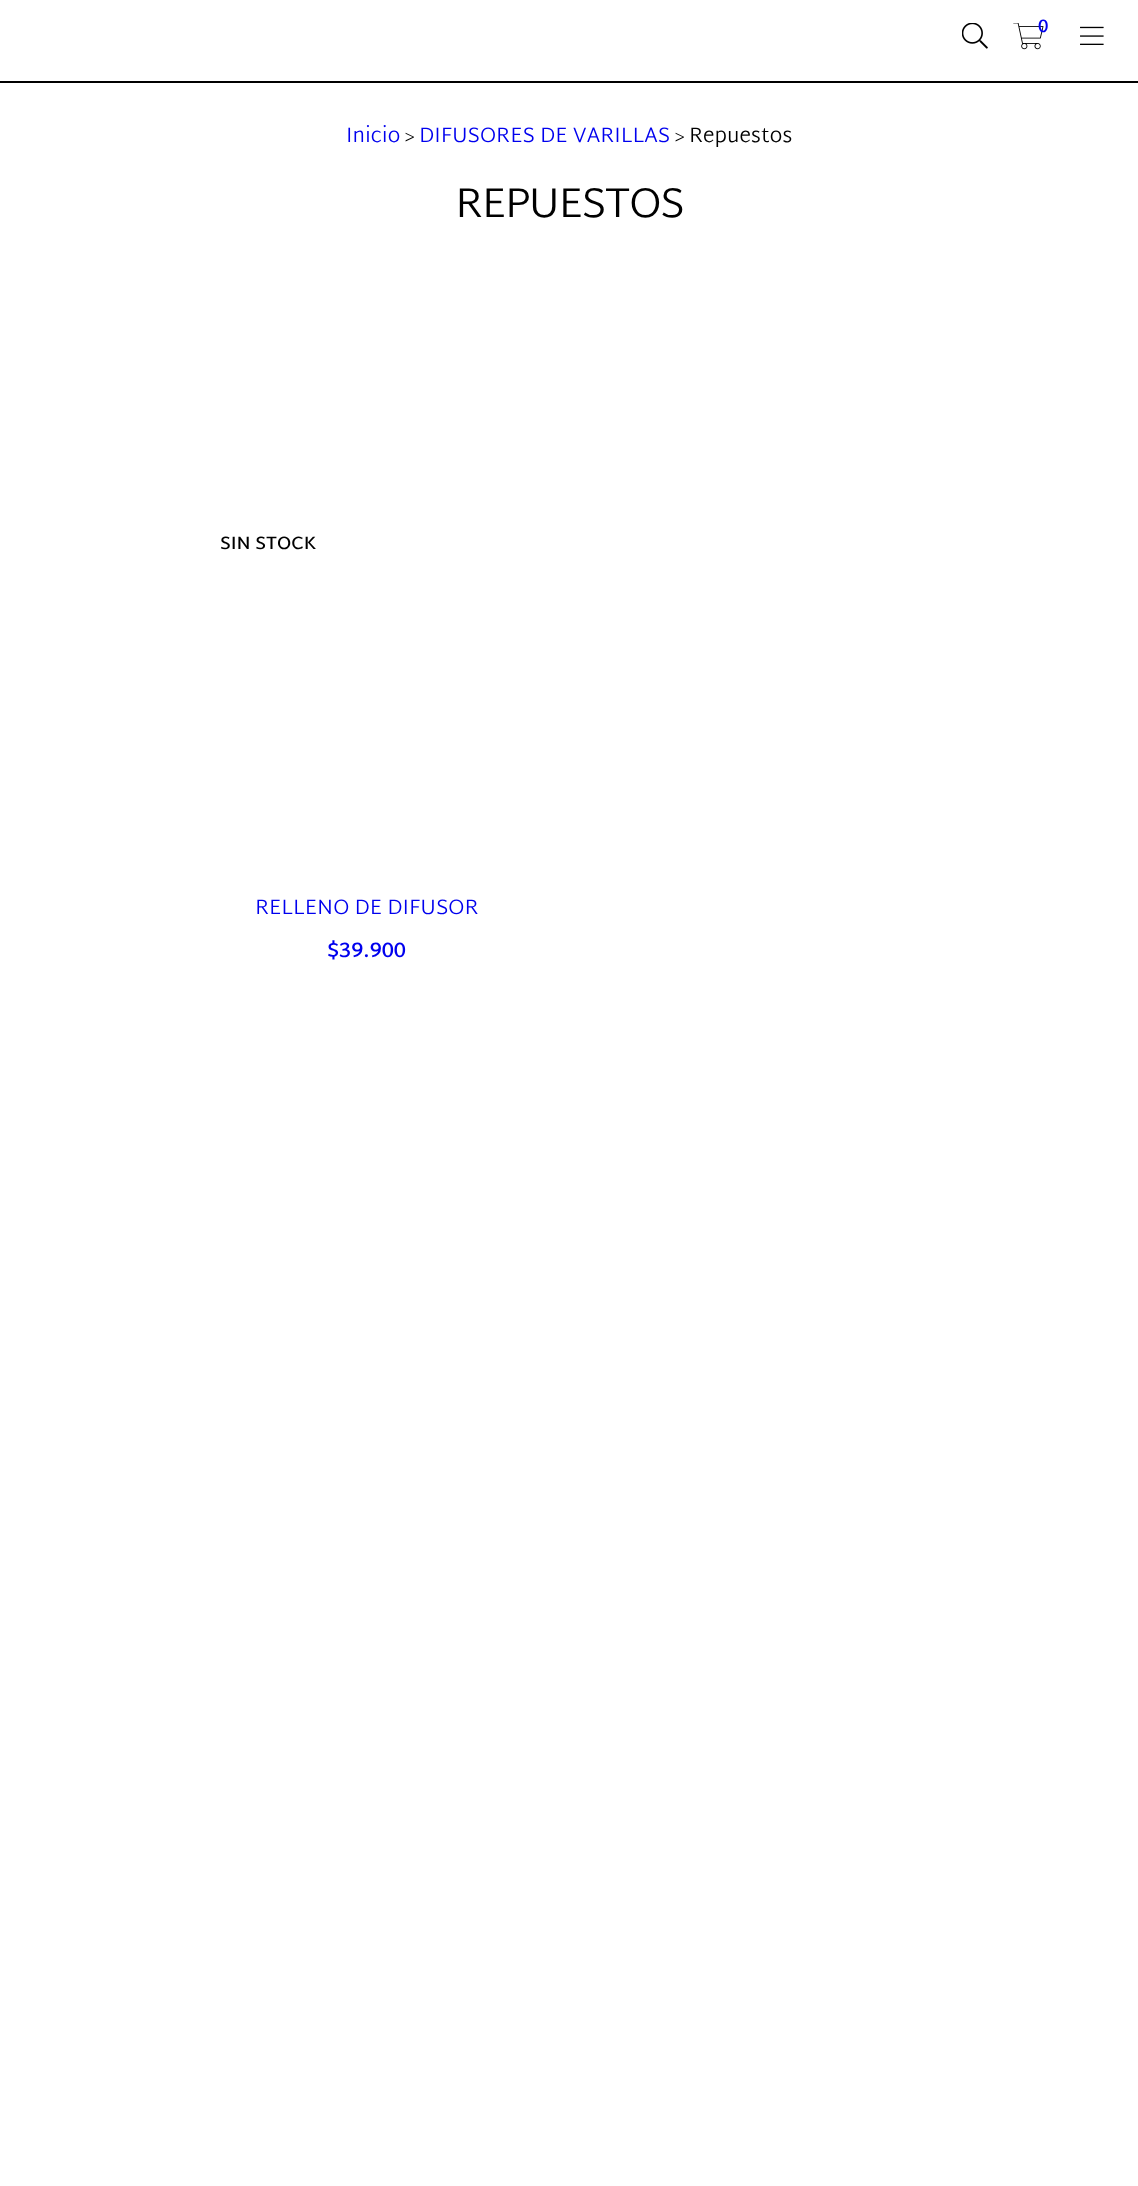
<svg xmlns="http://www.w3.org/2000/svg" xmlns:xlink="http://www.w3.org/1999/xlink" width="1138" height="2186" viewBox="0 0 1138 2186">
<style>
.cls-1{font:600 18px Martel Sans;fill:#0000ee}
.cls-2{font:300 21px Martel Sans;fill:#0000ee}
.cls-3{font:300 18px Martel Sans;fill:#000000}
.cls-4{font:300 21px Martel Sans;fill:#000000}
.cls-5{font:300 42px Martel Sans;letter-spacing:-1.5px;fill:#000000}
.cls-6{font:600 18px Martel Sans;fill:#000000}
.cls-7{font:600 21px Martel Sans;fill:#0000ee}
</style>
<rect width="100%" height="100%" fill="#ffffff"/>
<image xlink:href="image0.png" x="962" y="23" width="26" height="26"/>
<image xlink:href="image1.png" x="1013" y="23" width="31" height="27"/>
<image xlink:href="image2.png" x="1080" y="26" width="24" height="19"/>
<rect fill="#000000" x="0" y="81" width="1138" height="2"/>
<text class="cls-1" x="1038" y="32">0</text>
<text class="cls-2" x="346" y="142">Inicio</text>
<text class="cls-3" x="405" y="142">&gt;</text>
<text class="cls-2" x="419" y="142">DIFUSORES DE VARILLAS</text>
<text class="cls-3" x="675" y="142">&gt;</text>
<text class="cls-4" x="689" y="142">Repuestos</text>
<text class="cls-5" x="455" y="217">REPUESTOS</text>
<text class="cls-6" x="220" y="549">SIN STOCK</text>
<text class="cls-2" x="255" y="914">RELLENO DE DIFUSOR</text>
<text class="cls-7" x="327" y="957">$39.900</text>
</svg>
